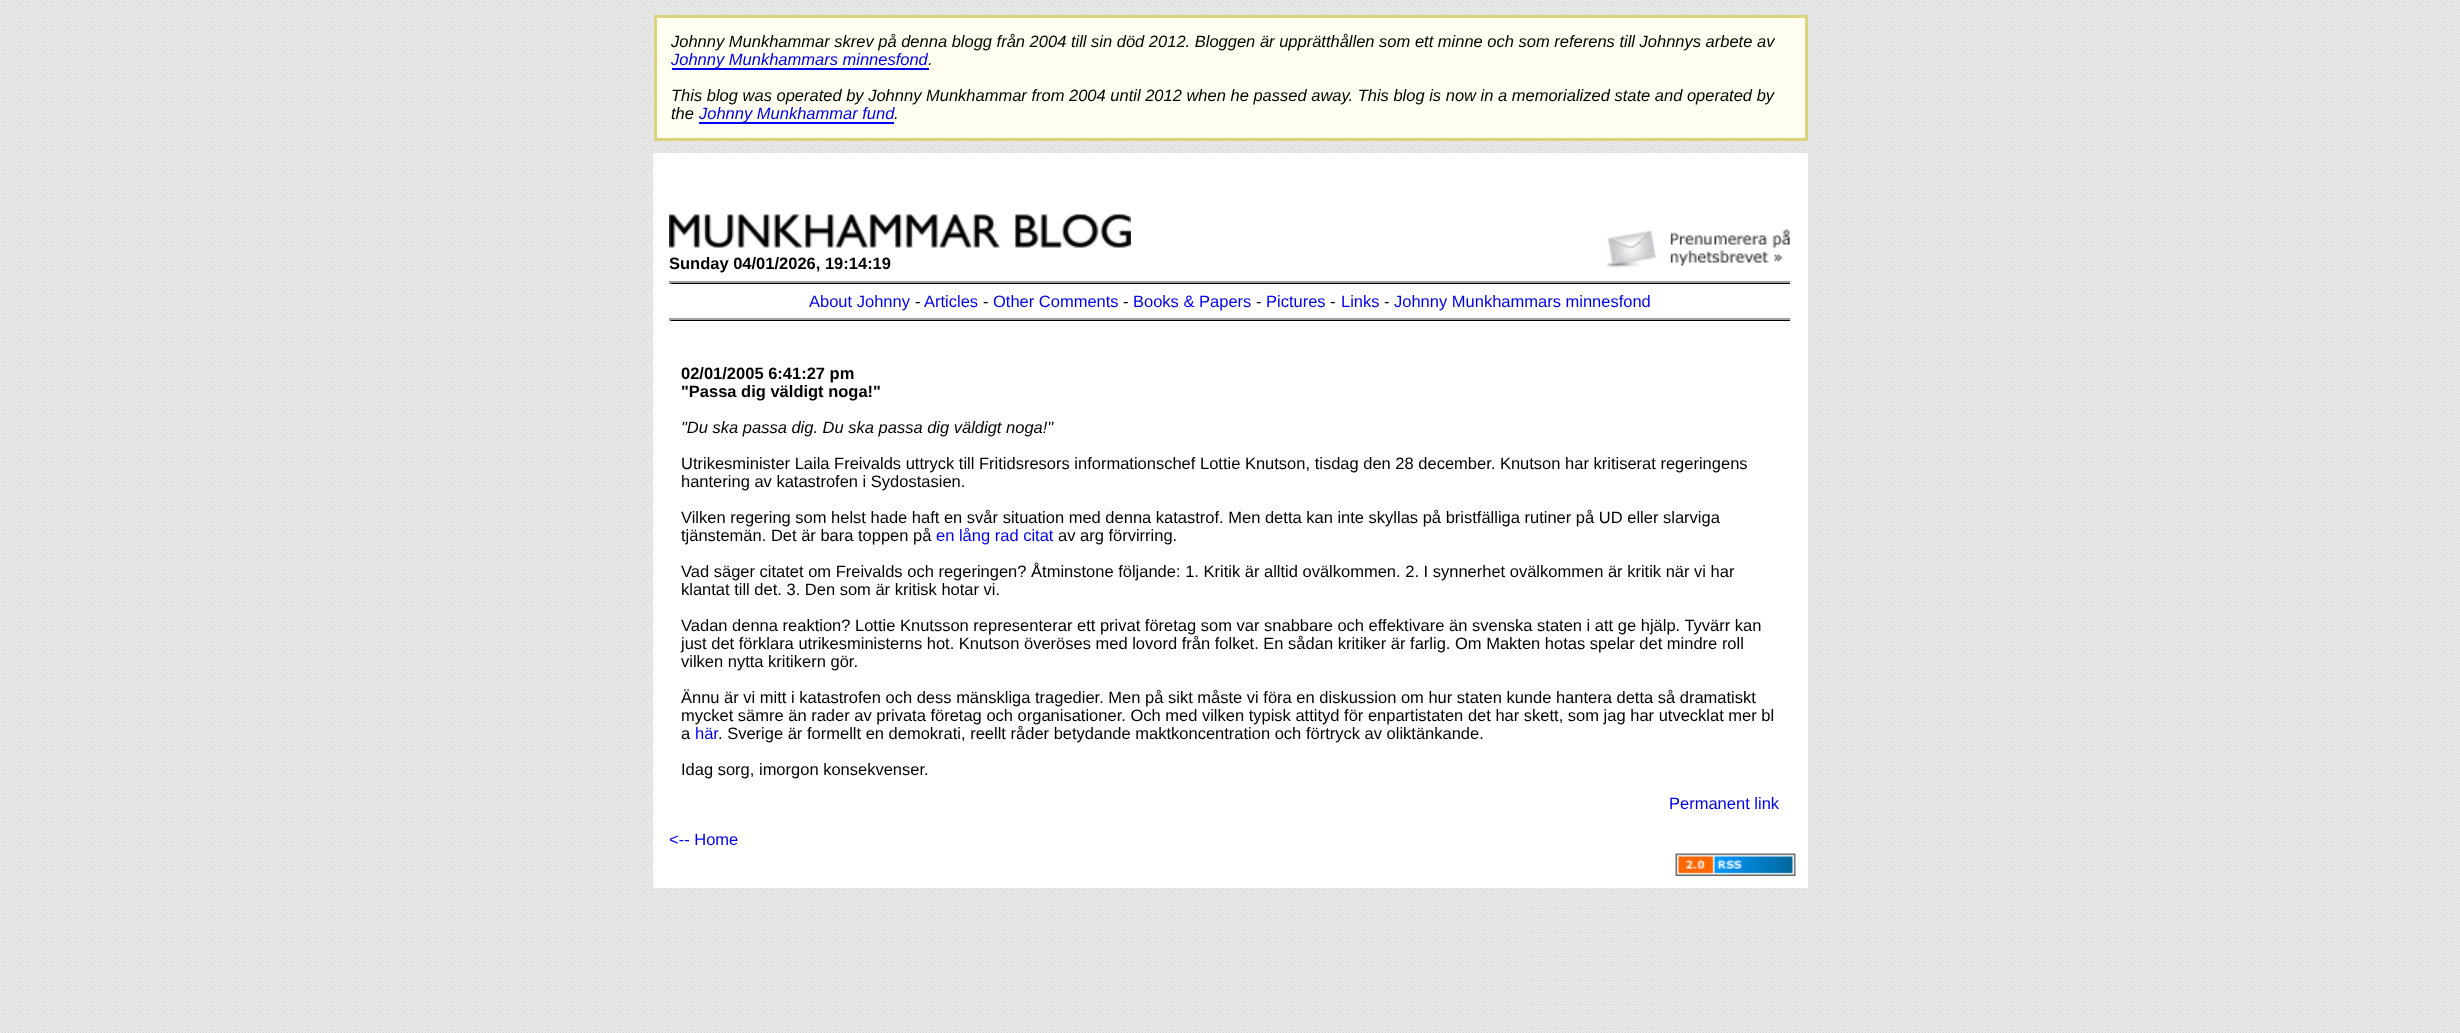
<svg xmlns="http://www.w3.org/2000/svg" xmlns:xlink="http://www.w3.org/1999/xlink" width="2460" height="1033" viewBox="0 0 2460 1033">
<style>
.cls-1{font:italic 16.5px Liberation Sans;fill:#000000}
.cls-2{font:italic 16.5px Liberation Sans;fill:#0000ee}
.cls-3{font:bold 16.5px Liberation Sans;fill:#000000}
.cls-4{font:16.5px Liberation Sans;fill:#0000ee}
.cls-5{font:16.5px Liberation Sans;fill:#000000}
</style>
<rect width="100%" height="100%" fill="#ffffff"/>
<image xlink:href="image0.png" x="0" y="0" width="2460" height="1033"/>
<rect fill="#fffff2" stroke="#dcd37c" stroke-width="3" x="655.5" y="16.5" width="1151" height="123"/>
<rect fill="#0000ee" x="672" y="68" width="257" height="2"/>
<rect fill="#0000ee" x="699" y="122" width="195" height="2"/>
<rect fill="#ffffff" x="653" y="153" width="1155" height="735"/>
<image xlink:href="image1.png" x="669" y="214" width="462" height="34"/>
<image xlink:href="image2.png" x="1606" y="229" width="184" height="39"/>
<rect fill="#000000" x="669" y="283" width="1122" height="1"/>
<rect fill="#9f9f9f" x="669" y="281" width="1122" height="2"/>
<rect fill="#eeeeee" x="1790" y="281" width="2" height="3"/>
<rect fill="#9f9f9f" x="669" y="281" width="2" height="3"/>
<rect fill="#000000" x="669" y="320" width="1122" height="1"/>
<rect fill="#9f9f9f" x="669" y="318" width="1122" height="2"/>
<rect fill="#eeeeee" x="1790" y="318" width="2" height="3"/>
<rect fill="#9f9f9f" x="669" y="318" width="2" height="3"/>
<image xlink:href="image3.png" x="1675" y="853" width="121" height="23"/>
<text class="cls-1" x="671" y="47">Johnny Munkhammar skrev på denna blogg från 2004 till sin död 2012. Bloggen är upprätthållen som ett minne och som referens till Johnnys arbete av</text>
<text class="cls-2" x="671" y="65">Johnny Munkhammars minnesfond</text>
<text class="cls-1" x="928" y="65">.</text>
<text class="cls-1"><tspan x="671" y="101">This blog was operated by Johnny Munkhammar from 2004 until 2012 when he passed away. This blog is now in a memorialized state and operated by</tspan><tspan x="671" y="119">the</tspan></text>
<text class="cls-2" x="699" y="119">Johnny Munkhammar fund</text>
<text class="cls-1" x="894" y="119">.</text>
<text class="cls-3" x="669" y="269">Sunday 04/01/2026, 19:14:19</text>
<text class="cls-4" x="809" y="307">About Johnny</text>
<text class="cls-5" x="915" y="307">-</text>
<text class="cls-4" x="924" y="307">Articles</text>
<text class="cls-5" x="983" y="307">-</text>
<text class="cls-4" x="993" y="307">Other Comments</text>
<text class="cls-5" x="1123" y="307">-</text>
<text class="cls-4" x="1133" y="307">Books &amp; Papers</text>
<text class="cls-5" x="1256" y="307">-</text>
<text class="cls-4" x="1266" y="307">Pictures</text>
<text class="cls-5" x="1330" y="307">-</text>
<text class="cls-4" x="1341" y="307">Links</text>
<text class="cls-5" x="1384" y="307">-</text>
<text class="cls-4" x="1394" y="307">Johnny Munkhammars minnesfond</text>
<text class="cls-3"><tspan x="681" y="379">02/01/2005 6:41:27 pm</tspan><tspan x="681" y="397">"Passa dig väldigt noga!"</tspan></text>
<text class="cls-1" x="681" y="433">"Du ska passa dig. Du ska passa dig väldigt noga!"</text>
<text class="cls-5"><tspan x="681" y="469">Utrikesminister Laila Freivalds uttryck till Fritidsresors informationschef Lottie Knutson, tisdag den 28 december. Knutson har kritiserat regeringens</tspan><tspan x="681" y="487">hantering av katastrofen i Sydostasien.</tspan></text>
<text class="cls-5"><tspan x="681" y="523">Vilken regering som helst hade haft en svår situation med denna katastrof. Men detta kan inte skyllas på bristfälliga rutiner på UD eller slarviga</tspan><tspan x="681" y="541">tjänstemän. Det är bara toppen på</tspan></text>
<text class="cls-4" x="936" y="541">en lång rad citat</text>
<text class="cls-5" x="1058" y="541">av arg förvirring.</text>
<text class="cls-5"><tspan x="681" y="577">Vad säger citatet om Freivalds och regeringen? Åtminstone följande: 1. Kritik är alltid ovälkommen. 2. I synnerhet ovälkommen är kritik när vi har</tspan><tspan x="681" y="595">klantat till det. 3. Den som är kritisk hotar vi.</tspan></text>
<text class="cls-5"><tspan x="681" y="631">Vadan denna reaktion? Lottie Knutsson representerar ett privat företag som var snabbare och effektivare än svenska staten i att ge hjälp. Tyvärr kan</tspan><tspan x="681" y="649">just det förklara utrikesministerns hot. Knutson överöses med lovord från folket. En sådan kritiker är farlig. Om Makten hotas spelar det mindre roll</tspan><tspan x="681" y="667">vilken nytta kritikern gör.</tspan></text>
<text class="cls-5"><tspan x="681" y="703">Ännu är vi mitt i katastrofen och dess mänskliga tragedier. Men på sikt måste vi föra en diskussion om hur staten kunde hantera detta så dramatiskt</tspan><tspan x="681" y="721">mycket sämre än rader av privata företag och organisationer. Och med vilken typisk attityd för enpartistaten det har skett, som jag har utvecklat mer bl</tspan><tspan x="681" y="739">a</tspan></text>
<text class="cls-4" x="695" y="739">här</text>
<text class="cls-5" x="718" y="739">. Sverige är formellt en demokrati, reellt råder betydande maktkoncentration och förtryck av oliktänkande.</text>
<text class="cls-5" x="681" y="775">Idag sorg, imorgon konsekvenser.</text>
<text class="cls-4" x="1669" y="809">Permanent link</text>
<text class="cls-4" x="669" y="845">&lt;-- Home</text>
</svg>
